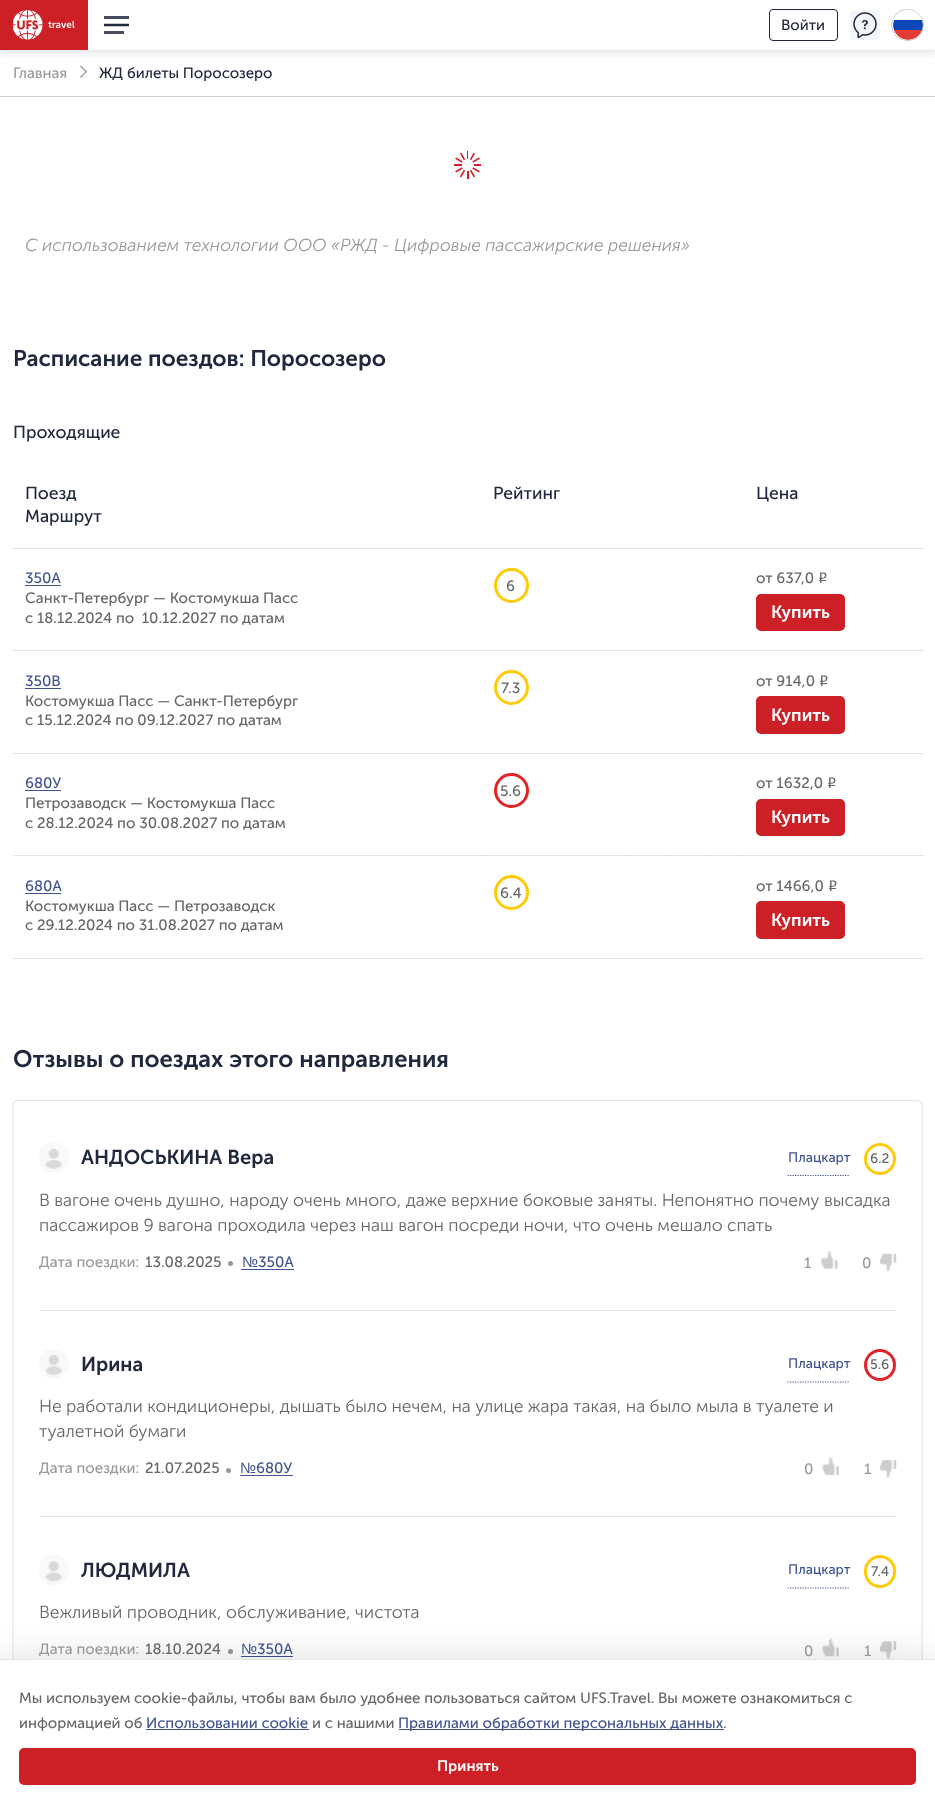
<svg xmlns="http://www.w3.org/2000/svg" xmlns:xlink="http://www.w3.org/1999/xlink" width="935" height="1809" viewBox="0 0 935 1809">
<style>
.cls-1{font:15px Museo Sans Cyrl;fill:#21283e}
.cls-2{font:15px Museo Sans Cyrl;fill:#999999}
.cls-3{font:italic 300 17.5px Museo Sans Cyrl;fill:#999999}
.cls-4{font:600 22.5px Museo Sans Cyrl;fill:#21283e}
.cls-5{font:17.5px Museo Sans Cyrl;fill:#21283e}
.cls-6{font:15px Museo Sans Cyrl;fill:#40538e}
.cls-7{font:15px Museo Sans Cyrl;fill:#666666}
.cls-8{font:15px 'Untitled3';fill:#666666}
.cls-9{font:600 17.5px Museo Sans Cyrl;fill:#ffffff}
.cls-10{font:600 23.75px Museo Sans Cyrl;fill:#21283e}
.cls-11{font:600 20px Museo Sans Cyrl;fill:#21283e}
.cls-12{font:13.75px Museo Sans Cyrl;fill:#40538e}
.cls-13{font:13.75px Museo Sans Cyrl;fill:#666666}
.cls-14{font:300 17.5px Museo Sans Cyrl;fill:#666666}
.cls-15{font:15px Liberation Sans;fill:#40538e}
.cls-16{font:600 15px Museo Sans Cyrl;fill:#ffffff}
</style>
<defs>
<clipPath id="clip1"><rect x="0" y="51" width="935" height="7"/></clipPath>
<clipPath id="clip2"><rect x="893" y="10" width="30" height="30" rx="15"/></clipPath>
</defs>
<rect width="100%" height="100%" fill="#ffffff"/>
<rect fill="#e4e4e4" x="13" y="548" width="911" height="1"/>
<rect fill="#d7d7d7" x="480" y="548" width="1" height="1"/>
<rect fill="#d7d7d7" x="625" y="548" width="1" height="1"/>
<rect fill="#d7d7d7" x="665" y="548" width="1" height="1"/>
<rect fill="#d7d7d7" x="704" y="548" width="1" height="1"/>
<rect fill="#e4e4e4" x="13" y="650" width="911" height="1"/>
<rect fill="#d7d7d7" x="480" y="650" width="1" height="1"/>
<rect fill="#d7d7d7" x="625" y="650" width="1" height="1"/>
<rect fill="#d7d7d7" x="665" y="650" width="1" height="1"/>
<rect fill="#d7d7d7" x="704" y="650" width="1" height="1"/>
<rect fill="#e4e4e4" x="13" y="753" width="911" height="1"/>
<rect fill="#d7d7d7" x="480" y="753" width="1" height="1"/>
<rect fill="#d7d7d7" x="625" y="753" width="1" height="1"/>
<rect fill="#d7d7d7" x="665" y="753" width="1" height="1"/>
<rect fill="#d7d7d7" x="704" y="753" width="1" height="1"/>
<rect fill="#e4e4e4" x="13" y="855" width="911" height="1"/>
<rect fill="#d7d7d7" x="480" y="855" width="1" height="1"/>
<rect fill="#d7d7d7" x="625" y="855" width="1" height="1"/>
<rect fill="#d7d7d7" x="665" y="855" width="1" height="1"/>
<rect fill="#d7d7d7" x="704" y="855" width="1" height="1"/>
<g clip-path="url(#clip1)">
<rect fill="#21283e" fill-opacity="0.1" filter="blur(5px)" x="0" y="3" width="935" height="51"/>
</g>
<rect fill="#e9eaec" x="0" y="50" width="935" height="1"/>
<rect fill="#cd2026" x="0" y="0" width="88" height="50"/>
<image xlink:href="image0.png" x="13" y="10" width="62" height="30"/>
<rect fill="#464c5e" x="104" y="16" width="25" height="3"/>
<path fill="none" stroke="#21283e" stroke-width="2.5" d="M104 25H129"/>
<rect fill="#464c5e" x="104" y="31" width="20" height="3"/>
<rect fill="none" stroke="#21283e" x="769.5" y="9.5" width="68" height="31" rx="3.5"/>
<rect fill="#f5f6f9" x="850" y="10" width="30" height="30" rx="4"/>
<image xlink:href="image1.png" x="853" y="12" width="24" height="27"/>
<rect fill="none" stroke="#c9cfd4" x="891.5" y="9.5" width="32" height="31" rx="15.5"/>
<g clip-path="url(#clip2)">
<g clip-path="url(#clip2)">
<rect fill="#ffffff" x="894" y="10" width="28" height="10"/>
<rect fill="#0c47b7" x="893" y="20" width="30" height="10"/>
<rect fill="#e53b35" x="894" y="30" width="28" height="10"/>
</g>
</g>
<rect fill="#d2d2d2" x="0" y="96" width="935" height="1"/>
<path fill="#979797" d="M80 66.5L81 65.5L87 71.5L86.5 72.5Z"/>
<path fill="#979797" d="M80 77L86.5 70.5L87 71.5L81 78Z"/>
<image xlink:href="image2.png" x="454" y="151" width="27" height="28"/>
<rect fill="#e4e4e4" x="13" y="958" width="910" height="1"/>
<rect fill="#40538e" x="25" y="585" width="36" height="1"/>
<circle fill="none" stroke="#ffca06" stroke-width="3" cx="511.5" cy="585.5" r="16"/>
<rect fill="#d7d7d7" x="743" y="548" width="1" height="1"/>
<rect fill="#cd2026" stroke="#cd2026" stroke-width="3" x="757.5" y="595.5" width="86" height="34" rx="3.5"/>
<rect fill="#40538e" x="25" y="688" width="36" height="1"/>
<circle fill="none" stroke="#ffca06" stroke-width="3" cx="511.5" cy="687.5" r="16"/>
<rect fill="#d7d7d7" x="743" y="650" width="1" height="1"/>
<rect fill="#cd2026" stroke="#cd2026" stroke-width="3" x="757.5" y="697.5" width="86" height="35" rx="3.5"/>
<rect fill="#40538e" x="25" y="790" width="36" height="1"/>
<circle fill="none" stroke="#e22427" stroke-width="3" cx="511.5" cy="790.5" r="16"/>
<rect fill="#d7d7d7" x="743" y="753" width="1" height="1"/>
<rect fill="#cd2026" stroke="#cd2026" stroke-width="3" x="757.5" y="800.5" width="86" height="34" rx="3.5"/>
<rect fill="#40538e" x="25" y="893" width="36" height="1"/>
<circle fill="none" stroke="#ffca06" stroke-width="3" cx="511.5" cy="892.5" r="16"/>
<rect fill="#d7d7d7" x="743" y="855" width="1" height="1"/>
<rect fill="#cd2026" stroke="#cd2026" stroke-width="3" x="757.5" y="902.5" width="86" height="35" rx="3.5"/>
<path fill="none" stroke="#e4e4e4" stroke-width="1.2" d="M14.5 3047C13.5 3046 13 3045 13 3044V1105C13 1104 13.5 1102.5 14.5 1102C15 1101 16.5 1100.5 17.5 1100.5H917.5C918.5 1100.5 920 1101 920.5 1102C921.5 1102.5 922 1104 922 1105V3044C922 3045 921.5 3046 920.5 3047"/>
<rect fill="#e4e4e4" x="39" y="1310" width="857" height="1"/>
<image xlink:href="image3.png" x="39" y="1142" width="30" height="31"/>
<path fill="none" stroke="#40538e" stroke-width="1.2" stroke-dasharray="1.25 1.25" d="M787.5 1175.5H850"/>
<circle fill="none" stroke="#ffca06" stroke-width="3" cx="880" cy="1159" r="14.5"/>
<circle fill="#999999" cx="230.5" cy="1263.5" r="2.5"/>
<rect fill="#40538e" x="241" y="1269" width="53" height="1"/>
<image xlink:href="image4.png" x="821" y="1251" width="17" height="18"/>
<image xlink:href="image5.png" x="880" y="1253" width="17" height="19"/>
<rect fill="#e4e4e4" x="39" y="1516" width="857" height="1"/>
<image xlink:href="image6.png" x="39" y="1349" width="30" height="30"/>
<path fill="none" stroke="#40538e" stroke-width="1.2" stroke-dasharray="1.25 1.25" d="M787.5 1382H850"/>
<circle fill="none" stroke="#e22427" stroke-width="3" cx="880" cy="1365" r="14.5"/>
<circle fill="#999999" cx="228.5" cy="1470.5" r="2.5"/>
<rect fill="#40538e" x="240" y="1475" width="53" height="1"/>
<image xlink:href="image7.png" x="822" y="1457" width="17" height="19"/>
<image xlink:href="image8.png" x="880" y="1460" width="17" height="18"/>
<image xlink:href="image9.png" x="39" y="1555" width="30" height="30"/>
<path fill="none" stroke="#40538e" stroke-width="1.2" stroke-dasharray="1.25 1.25" d="M787.5 1588H850"/>
<rect fill="none" stroke="#ffca06" stroke-width="3" x="865.5" y="1556.5" width="29" height="30" rx="14.5"/>
<circle fill="#999999" cx="230.5" cy="1651.5" r="2.5"/>
<rect fill="#40538e" x="241" y="1656" width="52" height="1"/>
<image xlink:href="image10.png" x="822" y="1638" width="17" height="19"/>
<image xlink:href="image11.png" x="880" y="1641" width="17" height="18"/>
<rect fill="#000000" fill-opacity="0.15" filter="blur(19px)" x="0" y="1661" width="935" height="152"/>
<rect fill="#ffffff" x="0" y="1660" width="935" height="149"/>
<rect fill="#e5e5e5" x="0" y="1659" width="935" height="1"/>
<rect fill="#40538e" x="146" y="1729" width="163" height="1"/>
<rect fill="#40538e" x="399" y="1729" width="325" height="1"/>
<rect fill="#cd2026" stroke="#cd2026" stroke-width="3" x="20.5" y="1749.5" width="894" height="34" rx="3.5"/>
<text class="cls-1" x="781" y="30">Войти</text>
<text class="cls-2" x="13" y="78">Главная</text>
<text class="cls-1" x="99" y="78">ЖД билеты Поросозеро</text>
<text class="cls-3" x="25" y="251">С использованием технологии ООО «РЖД - Цифровые пассажирские решения»</text>
<text class="cls-4" x="13" y="366">Расписание поездов: Поросозеро</text>
<text class="cls-5" x="13" y="438">Проходящие</text>
<text class="cls-5"><tspan x="25" y="499">Поезд</tspan><tspan x="25" y="522">Маршрут</tspan></text>
<text class="cls-5" x="493" y="499">Рейтинг</text>
<text class="cls-5" x="756" y="499">Цена</text>
<text class="cls-6" x="25" y="583">350А</text>
<text class="cls-7" xml:space="preserve"><tspan x="25" y="603">Санкт-Петербург — Костомукша Пасс</tspan><tspan x="25" y="623">с 18.12.2024 по  10.12.2027 по датам</tspan></text>
<text class="cls-7" x="506" y="591">6</text>
<text class="cls-7" x="756" y="583">от 637,0</text>
<text class="cls-8" x="818" y="583">r</text>
<text class="cls-9" x="771" y="618">Купить</text>
<text class="cls-6" x="25" y="686">350В</text>
<text class="cls-7"><tspan x="25" y="706">Костомукша Пасс — Санкт-Петербург</tspan><tspan x="25" y="725">с 15.12.2024 по 09.12.2027 по датам</tspan></text>
<text class="cls-7" x="501" y="693">7.3</text>
<text class="cls-7" x="756" y="686">от 914,0</text>
<text class="cls-8" x="819" y="686">r</text>
<text class="cls-9" x="771" y="721">Купить</text>
<text class="cls-6" x="25" y="788">680У</text>
<text class="cls-7"><tspan x="25" y="808">Петрозаводск — Костомукша Пасс</tspan><tspan x="25" y="828">с 28.12.2024 по 30.08.2027 по датам</tspan></text>
<text class="cls-7" x="500" y="796">5.6</text>
<text class="cls-7" x="756" y="788">от 1632,0</text>
<text class="cls-8" x="827" y="788">r</text>
<text class="cls-9" x="771" y="823">Купить</text>
<text class="cls-6" x="25" y="891">680А</text>
<text class="cls-7"><tspan x="25" y="911">Костомукша Пасс — Петрозаводск</tspan><tspan x="25" y="930">с 29.12.2024 по 31.08.2027 по датам</tspan></text>
<text class="cls-7" x="500" y="898">6.4</text>
<text class="cls-7" x="756" y="891">от 1466,0</text>
<text class="cls-8" x="828" y="891">r</text>
<text class="cls-9" x="771" y="926">Купить</text>
<text class="cls-10" x="13" y="1067">Отзывы о поездах этого направления</text>
<text class="cls-11" x="81" y="1164">АНДОСЬКИНА Вера</text>
<text class="cls-12" x="788" y="1162">Плацкарт</text>
<text class="cls-13" x="870" y="1163">6.2</text>
<text class="cls-14"><tspan x="39" y="1206">В вагоне очень душно, народу очень много, даже верхние боковые заняты. Непонятно почему высадка</tspan><tspan x="39" y="1231">пассажиров 9 вагона проходила через наш вагон посреди ночи, что очень мешало спать</tspan></text>
<text class="cls-2" x="39" y="1267">Дата поездки:</text>
<text class="cls-7" x="145" y="1267">13.08.2025</text>
<text class="cls-15" x="242" y="1267">№</text>
<text class="cls-6" x="258" y="1267">350А</text>
<text class="cls-2" x="804" y="1268">1</text>
<text class="cls-2" x="862" y="1268">0</text>
<text class="cls-11" x="81" y="1371">Ирина</text>
<text class="cls-12" x="788" y="1368">Плацкарт</text>
<text class="cls-13" x="870" y="1369">5.6</text>
<text class="cls-14"><tspan x="39" y="1412">Не работали кондиционеры, дышать было нечем, на улице жара такая, на было мыла в туалете и</tspan><tspan x="39" y="1437">туалетной бумаги</tspan></text>
<text class="cls-2" x="39" y="1473">Дата поездки:</text>
<text class="cls-7" x="145" y="1473">21.07.2025</text>
<text class="cls-15" x="240" y="1473">№</text>
<text class="cls-6" x="256" y="1473">680У</text>
<text class="cls-2" x="804" y="1474">0</text>
<text class="cls-2" x="864" y="1474">1</text>
<text class="cls-11" x="81" y="1577">ЛЮДМИЛА</text>
<text class="cls-12" x="788" y="1574">Плацкарт</text>
<text class="cls-13" x="871" y="1576">7.4</text>
<text class="cls-14" x="39" y="1618">Вежливый проводник, обслуживание, чистота</text>
<text class="cls-2" x="39" y="1654">Дата поездки:</text>
<text class="cls-7" x="145" y="1654">18.10.2024</text>
<text class="cls-15" x="241" y="1654">№</text>
<text class="cls-6" x="257" y="1654">350А</text>
<text class="cls-2" x="804" y="1656">0</text>
<text class="cls-2" x="864" y="1656">1</text>
<text class="cls-7"><tspan x="19" y="1703">Мы используем cookie-файлы, чтобы вам было удобнее пользоваться сайтом UFS.Travel. Вы можете ознакомиться с</tspan><tspan x="19" y="1728">информацией об</tspan></text>
<text class="cls-6" x="146" y="1728">Использовании cookie</text>
<text class="cls-7" x="312" y="1728">и с нашими</text>
<text class="cls-6" x="398" y="1728">Правилами обработки персональных данных</text>
<text class="cls-7" x="723" y="1728">.</text>
<text class="cls-16" x="437" y="1771">Принять</text>
</svg>
